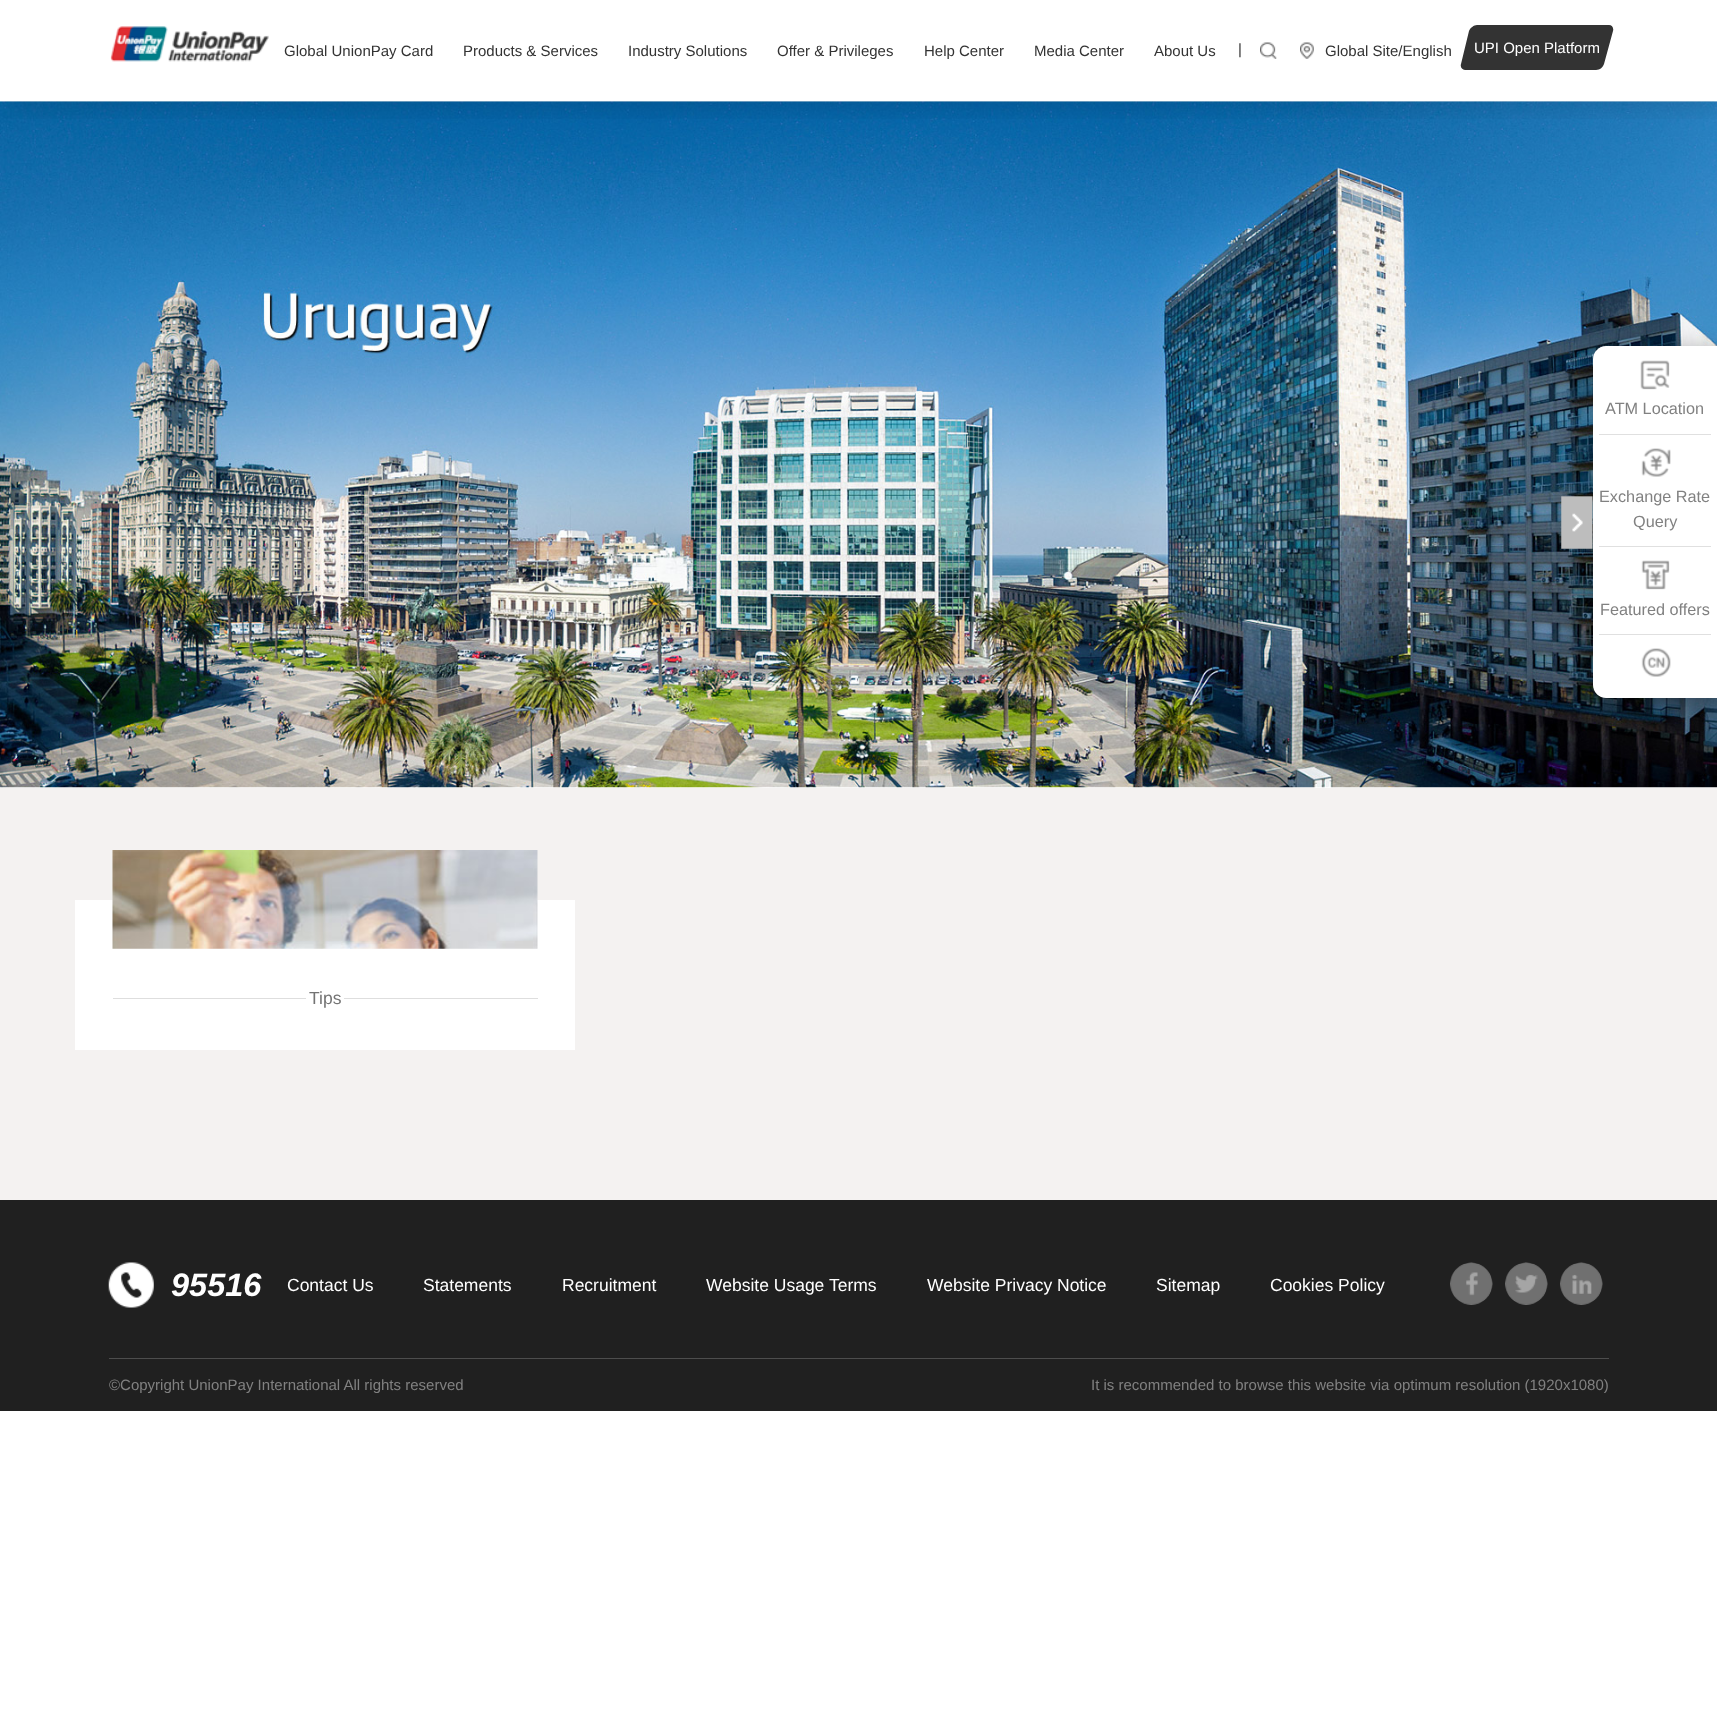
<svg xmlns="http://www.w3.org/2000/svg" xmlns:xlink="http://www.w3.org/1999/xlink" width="1717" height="1733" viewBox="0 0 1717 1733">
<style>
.cls-1{font:15px Liberation Sans;fill:#333333}
.cls-2{font:15px Liberation Sans;fill:#ffffff}
.cls-3{font:16.25px Liberation Sans;fill:#818181}
.cls-4{font:17.5px Liberation Sans;fill:#737373}
.cls-5{font:italic bold 32.5px Liberation Sans;fill:#ffffff}
.cls-6{font:17.5px Liberation Sans;fill:#ffffff}
.cls-7{font:15px Liberation Sans;fill:#818181}
</style>
<defs>
<clipPath id="clip1"><rect x="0" y="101" width="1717" height="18"/></clipPath>
</defs>
<rect width="100%" height="100%" fill="#ffffff"/>
<image xlink:href="image3.png" x="0" y="101" width="1717" height="687"/>
<g clip-path="url(#clip1)">
<rect fill="#000000" fill-opacity="0.1" filter="blur(12.5px)" x="6" y="6" width="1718" height="102"/>
</g>
<image xlink:href="image0.png" x="110" y="26" width="159" height="36"/>
<image xlink:href="image1.png" x="1260" y="42" width="17" height="17"/>
<image xlink:href="image2.png" x="1300" y="42" width="14" height="17"/>
<path fill="#333333" d="M1477 25H1609C1612 25 1614 28 1613 31L1604 64C1603 67 1600 70 1596 70H1465C1462 70 1460 67 1461 64L1469 31C1470 28 1474 25 1477 25Z"/>
<rect fill="#000000" fill-opacity="0.4" filter="blur(12.5px)" x="1599" y="353" width="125" height="351" rx="13"/>
<path fill="#ffffff" d="M1606 346H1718V698H1606C1599 698 1593 692 1593 685V359C1593 352 1599 346 1606 346Z"/>
<image xlink:href="image4.png" x="1561" y="496" width="32" height="53"/>
<rect fill="#e0e0e0" x="1599" y="434" width="112" height="1"/>
<image xlink:href="image5.png" x="1640" y="360" width="30" height="30"/>
<rect fill="#e0e0e0" x="1599" y="546" width="112" height="1"/>
<image xlink:href="image6.png" x="1641" y="448" width="30" height="29"/>
<rect fill="#e0e0e0" x="1599" y="634" width="112" height="1"/>
<image xlink:href="image7.png" x="1641" y="560" width="29" height="30"/>
<image xlink:href="image8.png" x="1641" y="648" width="30" height="29"/>
<rect fill="#f4f2f1" x="0" y="788" width="1717" height="412"/>
<rect fill="#ffffff" x="75" y="900" width="500" height="150"/>
<image xlink:href="image9.png" x="112" y="850" width="426" height="99"/>
<rect fill="#dedede" x="113" y="998" width="425" height="1"/>
<rect fill="#ffffff" x="306" y="998" width="38" height="1"/>
<rect fill="#202020" x="0" y="1200" width="1717" height="211"/>
<rect fill="#4d4d4d" x="109" y="1358" width="1500" height="1"/>
<image xlink:href="image10.png" x="108" y="1262" width="46" height="46"/>
<image xlink:href="image11.png" x="1450" y="1262" width="43" height="43"/>
<image xlink:href="image12.png" x="1505" y="1262" width="43" height="43"/>
<image xlink:href="image13.png" x="1560" y="1262" width="43" height="43"/>
<text class="cls-1" x="284" y="56">Global UnionPay Card</text>
<text class="cls-1" x="463" y="56">Products &amp; Services</text>
<text class="cls-1" x="628" y="56">Industry Solutions</text>
<text class="cls-1" x="777" y="56">Offer &amp; Privileges</text>
<text class="cls-1" x="924" y="56">Help Center</text>
<text class="cls-1" x="1034" y="56">Media Center</text>
<text class="cls-1" x="1154" y="56">About Us</text>
<text class="cls-1" x="1238" y="54">|</text>
<text class="cls-1" x="1325" y="56">Global Site/English</text>
<text class="cls-2" x="1474" y="53">UPI Open Platform</text>
<text class="cls-3" x="1605" y="414">ATM Location</text>
<text class="cls-3" x="1599" y="502">Exchange Rate</text>
<text class="cls-3" x="1633" y="527">Query</text>
<text class="cls-3" x="1600" y="615">Featured offers</text>
<text class="cls-4" x="309" y="1004">Tips</text>
<text class="cls-5" x="171" y="1296">95516</text>
<text class="cls-6" x="287" y="1291">Contact Us</text>
<text class="cls-6" x="423" y="1291">Statements</text>
<text class="cls-6" x="562" y="1291">Recruitment</text>
<text class="cls-6" x="706" y="1291">Website Usage Terms</text>
<text class="cls-6" x="927" y="1291">Website Privacy Notice</text>
<text class="cls-6" x="1156" y="1291">Sitemap</text>
<text class="cls-6" x="1270" y="1291">Cookies Policy</text>
<text class="cls-7" x="109" y="1390">©Copyright UnionPay International All rights reserved</text>
<text class="cls-7" x="1091" y="1390">It is recommended to browse this website via optimum resolution (1920x1080)</text>
</svg>
